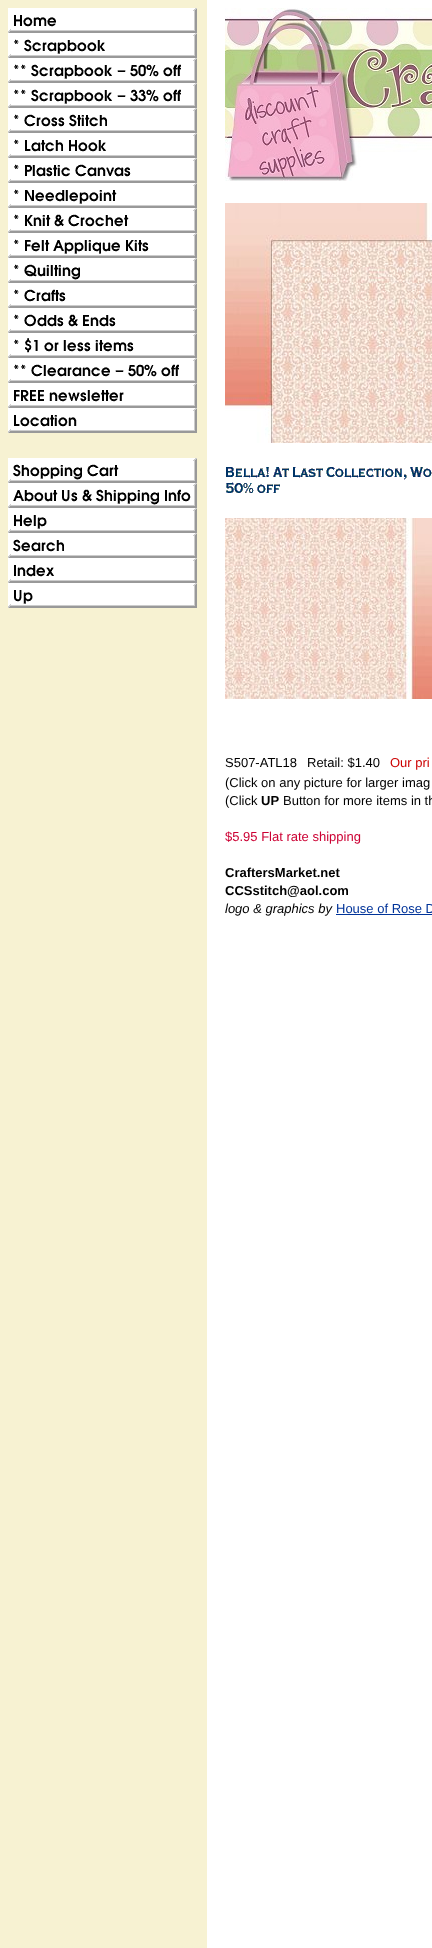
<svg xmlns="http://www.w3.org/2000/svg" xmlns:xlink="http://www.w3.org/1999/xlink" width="432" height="1948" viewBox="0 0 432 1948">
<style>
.cls-1{font:13px Liberation Sans;fill:#000000}
.cls-2{font:13px Liberation Sans;fill:#cc0000}
.cls-3{font:bold 13px Liberation Sans;fill:#000000}
.cls-4{font:13px Liberation Sans;fill:#cc0033}
.cls-5{font:italic 13px Liberation Sans;fill:#000000}
.cls-6{font:13px Liberation Sans;fill:#003399}
</style>
<rect width="100%" height="100%" fill="#ffffff"/>
<rect fill="#f7f2d2" x="0" y="0" width="207" height="1948"/>
<image xlink:href="image0.png" x="8" y="8" width="189" height="600"/>
<image xlink:href="image1.png" x="225" y="8" width="207" height="173"/>
<image xlink:href="image2.png" x="225" y="203" width="207" height="240"/>
<image xlink:href="image3.png" x="226" y="467" width="206" height="26"/>
<image xlink:href="image4.png" x="225" y="518" width="207" height="181"/>
<rect fill="#003399" x="336" y="914" width="96" height="1"/>
<text class="cls-1" x="225" y="767">S507-ATL18</text>
<text class="cls-1" x="307" y="767">Retail: $1.40</text>
<text class="cls-2" x="390" y="767">Our pri</text>
<text class="cls-1"><tspan x="225" y="787">(Click on any picture for larger imag</tspan><tspan x="225" y="805">(Click</tspan></text>
<text class="cls-3" x="261" y="805">UP</text>
<text class="cls-1" x="283" y="805">Button for more items in th</text>
<text class="cls-4" x="225" y="841">$5.95 Flat rate shipping</text>
<text class="cls-3"><tspan x="225" y="877">CraftersMarket.net</tspan><tspan x="225" y="895">CCSstitch@aol.com</tspan></text>
<text class="cls-5" x="225" y="913">logo &amp; graphics by</text>
<text class="cls-6" x="336" y="913">House of Rose D</text>
</svg>
